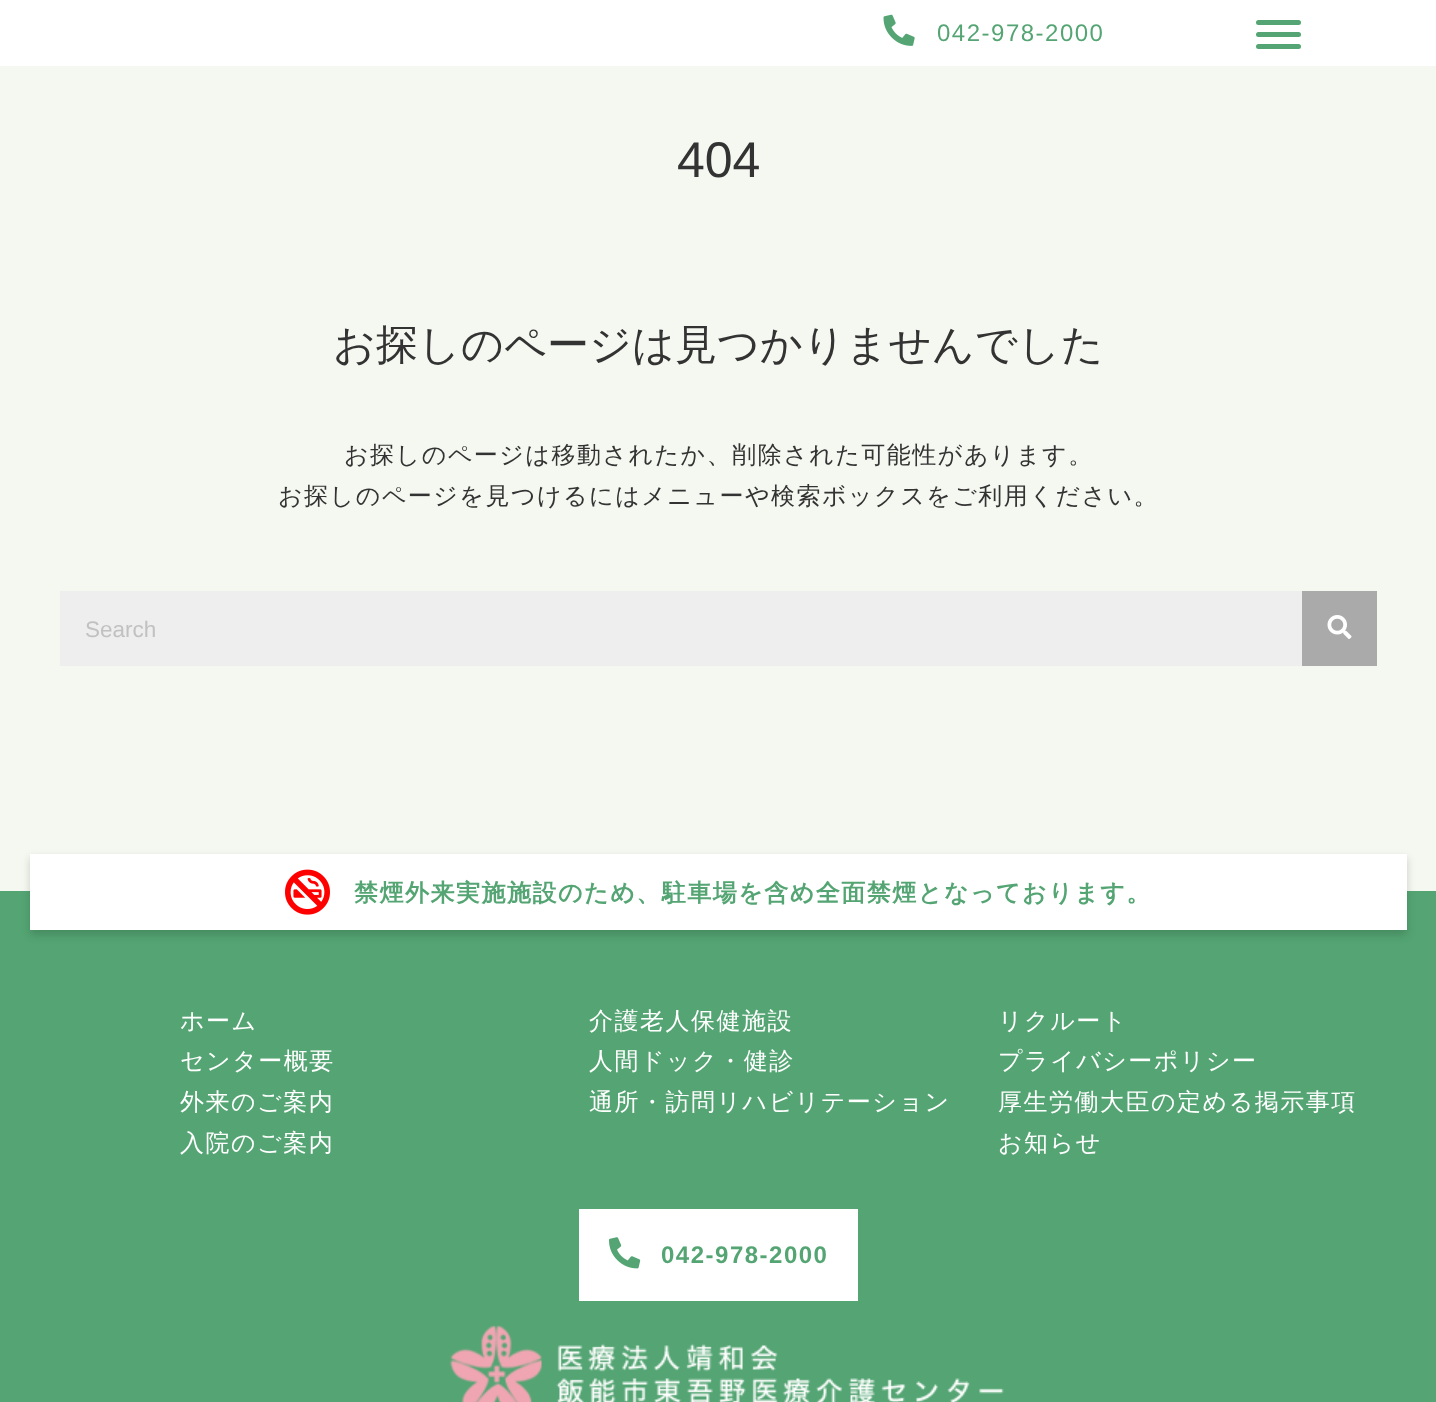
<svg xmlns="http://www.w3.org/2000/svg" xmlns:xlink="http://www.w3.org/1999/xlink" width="1436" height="1402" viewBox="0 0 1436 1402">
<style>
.cls-1{font:24px Liberation Sans;letter-spacing:1.5px;fill:#54a573}
.cls-2{font:50px Liberation Sans;fill:#333333}
.cls-3{font:500 42px WenQuanYi Zen Hei;fill:#333333}
.cls-4{font:500 24px WenQuanYi Zen Hei;letter-spacing:1.5px;fill:#333333}
.cls-5{font:22.5px Liberation Sans;fill:#c1c1c1}
.cls-6{font:bold 24px WenQuanYi Zen Hei;letter-spacing:1.5px;fill:#54a573}
.cls-7{font:500 24px WenQuanYi Zen Hei;letter-spacing:1.5px;fill:#ffffff}
.cls-8{font:bold 24px Liberation Sans;letter-spacing:1.5px;fill:#54a573}
</style>
<rect width="100%" height="100%" fill="#f4f8f0"/>
<rect fill="#ffffff" x="0" y="0" width="1436" height="66"/>
<image xlink:href="image0.png" x="883" y="14" width="32" height="32"/>
<rect fill="#54a573" x="1256" y="32" width="45" height="5" rx="2.5"/>
<rect fill="#54a573" x="1256" y="20" width="45" height="5" rx="2.5"/>
<rect fill="#54a573" x="1256" y="44" width="45" height="5" rx="2.5"/>
<rect fill="#eeeeee" x="60" y="591" width="1242" height="75"/>
<rect fill="#aaaaaa" x="1302" y="591" width="75" height="75"/>
<image xlink:href="image1.png" x="1327" y="615" width="25" height="24"/>
<rect fill="#54a573" x="0" y="891" width="1436" height="511"/>
<rect fill="#000000" fill-opacity="0.16" filter="blur(4.5px)" x="30" y="858" width="1377" height="77"/>
<rect fill="#ffffff" x="30" y="854" width="1377" height="76"/>
<image xlink:href="image2.png" x="285" y="869" width="45" height="46"/>
<rect fill="#ffffff" x="579" y="1209" width="279" height="92"/>
<image xlink:href="image3.png" x="609" y="1237" width="32" height="32"/>
<image xlink:href="image4.png" x="449" y="1325" width="555" height="77"/>
<text class="cls-1" x="937" y="41">042-978-2000</text>
<text class="cls-2" x="677" y="177">404</text>
<text class="cls-3" x="333" y="359">お探しのページは見つかりませんでした</text>
<text class="cls-4" x="344" y="463">お探しのページは移動されたか、削除された可能性があります。</text>
<text class="cls-4" x="278" y="504">お探しのページを見つけるにはメニューや検索ボックスをご利用ください。</text>
<text class="cls-5" x="85" y="637">Search</text>
<text class="cls-6" x="354" y="901">禁煙外来実施施設のため、駐車場を含め全面禁煙となっております。</text>
<text class="cls-7"><tspan x="180" y="1029">ホーム</tspan><tspan x="180" y="1069">センター概要</tspan><tspan x="180" y="1110">外来のご案内</tspan><tspan x="180" y="1151">入院のご案内</tspan></text>
<text class="cls-7"><tspan x="589" y="1029">介護老人保健施設</tspan><tspan x="589" y="1069">人間ドック・健診</tspan><tspan x="589" y="1110">通所・訪問リハビリテーション</tspan></text>
<text class="cls-7"><tspan x="998" y="1029">リクルート</tspan><tspan x="998" y="1069">プライバシーポリシー</tspan><tspan x="998" y="1110">厚生労働大臣の定める掲示事項</tspan><tspan x="998" y="1151">お知らせ</tspan></text>
<text class="cls-8" x="661" y="1263">042-978-2000</text>
</svg>
